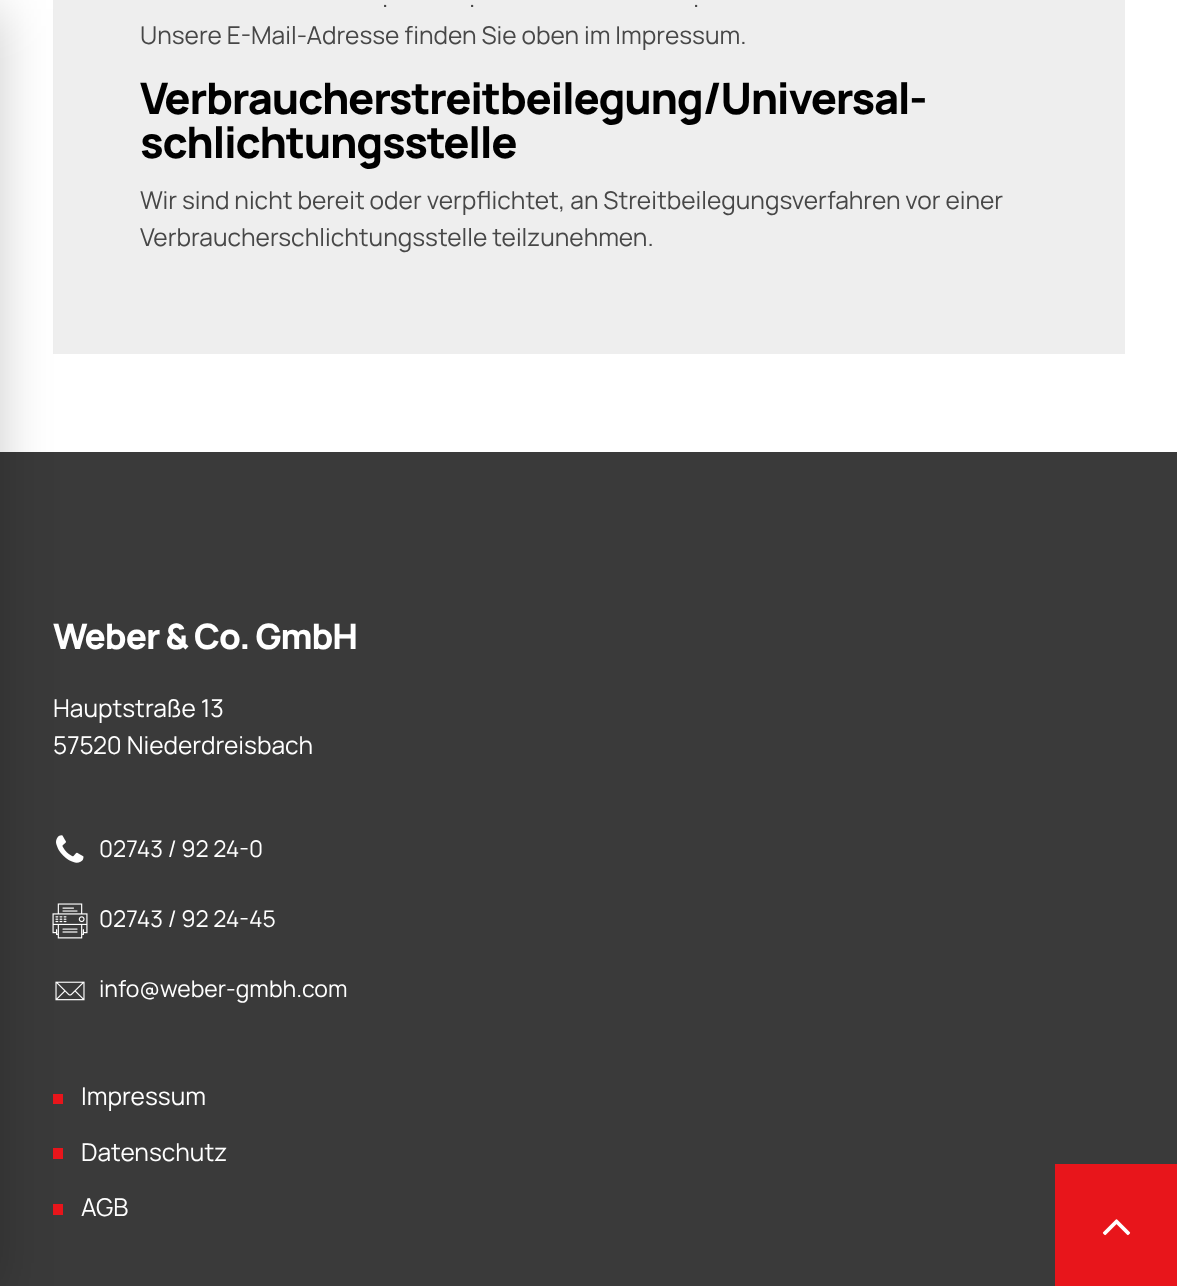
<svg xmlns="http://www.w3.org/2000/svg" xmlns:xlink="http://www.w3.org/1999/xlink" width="1177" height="1286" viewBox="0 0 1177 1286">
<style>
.cls-1{font:24.5px Manrope;fill:#474747}
.cls-2{font:800 43.3px Manrope;letter-spacing:-1.3px;fill:#000000}
.cls-3{font:800 35px Manrope;letter-spacing:-1px;fill:#ffffff}
.cls-4{font:24.5px Manrope;fill:#ffffff}
.cls-5{font:23px Manrope;fill:#ffffff}
</style>
<rect width="100%" height="100%" fill="#ffffff"/>
<rect fill="#eeeeee" x="53" y="0" width="1072" height="354"/>
<rect fill="#3a3a3a" x="0" y="452" width="1177" height="834"/>
<image xlink:href="image0.png" x="56" y="835" width="28" height="28"/>
<image xlink:href="image1.png" x="52" y="903" width="36" height="36"/>
<image xlink:href="image2.png" x="55" y="981" width="30" height="20"/>
<rect fill="#e8151b" x="53" y="1094" width="10" height="10"/>
<rect fill="#e8151b" x="53" y="1148" width="10" height="11"/>
<rect fill="#e8151b" x="53" y="1204" width="10" height="11"/>
<rect fill="#000000" fill-opacity="0.2" filter="blur(26px)" x="-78" y="9" width="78" height="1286"/>
<rect fill="#e8151b" x="1055" y="1164" width="122" height="122"/>
<image xlink:href="image3.png" x="1102" y="1219" width="29" height="17"/>
<text class="cls-1" x="382" y="7">.</text>
<text class="cls-1" x="469" y="7">.</text>
<text class="cls-1" x="693" y="7">.</text>
<text class="cls-1" x="140" y="44">Unsere E-Mail-Adresse finden Sie oben im Impressum.</text>
<text class="cls-2"><tspan x="140" y="114">Verbraucherstreitbeilegung/Universal-</tspan><tspan x="140" y="158">schlichtungsstelle</tspan></text>
<text class="cls-1"><tspan x="140" y="209">Wir sind nicht bereit oder verpflichtet, an Streitbeilegungsverfahren vor einer</tspan><tspan x="140" y="246">Verbraucherschlichtungsstelle teilzunehmen.</tspan></text>
<text class="cls-3" x="53" y="649">Weber &amp; Co. GmbH</text>
<text class="cls-4"><tspan x="53" y="717">Hauptstraße 13</tspan><tspan x="53" y="754">57520 Niederdreisbach</tspan></text>
<text class="cls-5" x="99" y="857">02743 / 92 24-0</text>
<text class="cls-5" x="99" y="927">02743 / 92 24-45</text>
<text class="cls-5" x="99" y="997">info@weber-gmbh.com</text>
<text class="cls-4" x="81" y="1105">Impressum</text>
<text class="cls-4" x="81" y="1161">Datenschutz</text>
<text class="cls-4" x="81" y="1216">AGB</text>
</svg>
